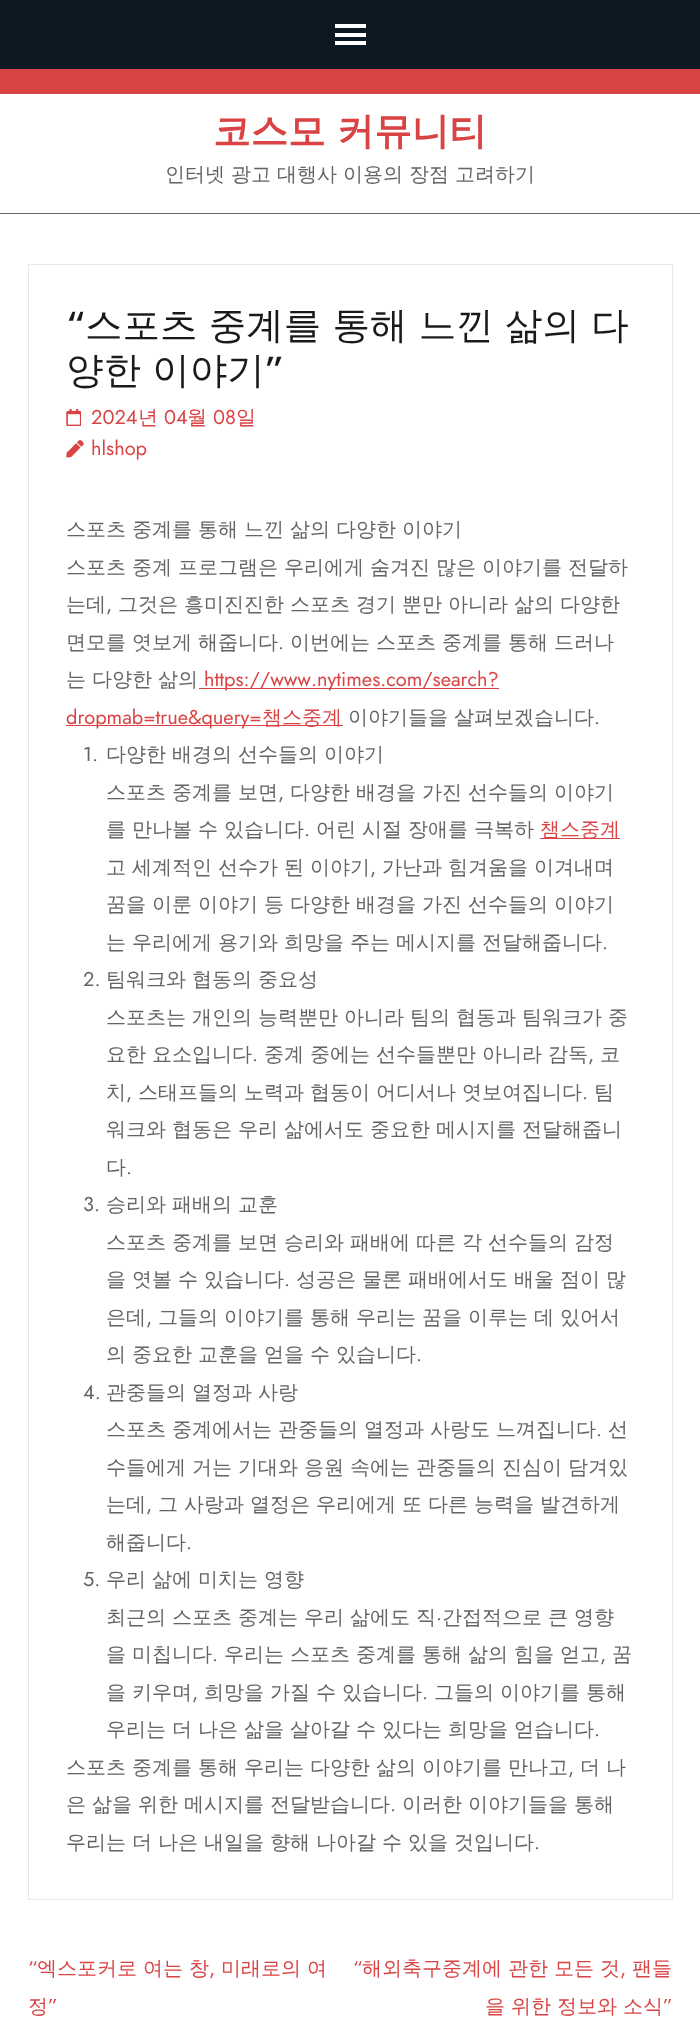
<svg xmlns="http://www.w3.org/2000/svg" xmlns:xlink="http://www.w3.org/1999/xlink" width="700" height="2043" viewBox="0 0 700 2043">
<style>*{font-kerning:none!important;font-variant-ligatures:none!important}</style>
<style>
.cls-1{font:bold 37.5px WenQuanYi Zen Hei;fill:#d94343}
.cls-2{font:500 20px WenQuanYi Zen Hei;fill:#646464}
.cls-3{font:500 37.5px Jost;fill:#1a1a1a}
.cls-4{font:500 37.5px WenQuanYi Zen Hei;fill:#1a1a1a}
.cls-5{font:20px Jost;fill:#d94343}
.cls-6{font:500 20px WenQuanYi Zen Hei;fill:#d94343}
.cls-7{font:20px Jost;fill:#646464}
</style>
<rect width="100%" height="100%" fill="#ffffff"/>
<rect fill="#0c1923" x="0" y="0" width="700" height="69"/>
<rect fill="#ffffff" x="335" y="24" width="31" height="4"/>
<rect fill="#ffffff" x="335" y="33" width="31" height="4"/>
<rect fill="#ffffff" x="335" y="41" width="31" height="4"/>
<rect fill="#d94343" x="0" y="69" width="700" height="25"/>
<rect fill="#646464" x="0" y="213" width="700" height="1"/>
<rect fill="none" stroke="#e8e8e8" x="28.5" y="264.5" width="644" height="1635"/>
<image xlink:href="image0.png" x="66" y="409" width="15" height="17"/>
<image xlink:href="image1.png" x="66" y="440" width="18" height="18"/>
<rect fill="#d94343" x="199" y="688" width="300" height="1"/>
<rect fill="#d94343" x="66" y="725" width="277" height="1"/>
<rect fill="#d94343" x="540" y="838" width="80" height="1"/>
<text class="cls-1" x="213" y="144">코스모 커뮤니티</text>
<text class="cls-2" x="165" y="181">인터넷 광고 대행사 이용의 장점 고려하기</text>
<text class="cls-3" x="66" y="338">“</text>
<text class="cls-4" x="85" y="338">스포츠 중계를 통해 느낀 삶의 다</text>
<text class="cls-4" x="66" y="383">양한 이야기</text>
<text class="cls-3" x="265" y="383">”</text>
<text class="cls-5" x="91" y="424">2024</text>
<text class="cls-6" x="138" y="424">년</text>
<text class="cls-5" x="164" y="424">04</text>
<text class="cls-6" x="187" y="424">월</text>
<text class="cls-5" x="213" y="424">08</text>
<text class="cls-6" x="236" y="424">일</text>
<text class="cls-5" x="91" y="455">hlshop</text>
<text class="cls-2"><tspan x="66" y="536">스포츠 중계를 통해 느낀 삶의 다양한 이야기</tspan><tspan x="66" y="574">스포츠 중계 프로그램은 우리에게 숨겨진 많은 이야기를 전달하</tspan><tspan x="66" y="611">는데</tspan></text>
<text class="cls-7" x="106" y="611">,</text>
<text class="cls-2" x="118" y="611">그것은 흥미진진한 스포츠 경기 뿐만 아니라 삶의 다양한</text>
<text class="cls-2" x="66" y="649">면모를 엿보게 해줍니다</text>
<text class="cls-7" x="278" y="649">.</text>
<text class="cls-2" x="290" y="649">이번에는 스포츠 중계를 통해 드러나</text>
<text class="cls-2" x="66" y="686">는 다양한 삶의</text>
<text class="cls-5" x="204" y="686">https://www.nytimes.com/search?</text>
<text class="cls-5" x="66" y="724">dropmab=true&amp;query=</text>
<text class="cls-6" x="262" y="724">챔스중계</text>
<text class="cls-2" x="348" y="724">이야기들을 살펴보겠습니다</text>
<text class="cls-7" x="594" y="724">.</text>
<text class="cls-7" x="83" y="761">1.</text>
<text class="cls-2"><tspan x="106" y="761">다양한 배경의 선수들의 이야기</tspan><tspan x="106" y="799">스포츠 중계를 보면</tspan></text>
<text class="cls-7" x="278" y="799">,</text>
<text class="cls-2" x="290" y="799">다양한 배경을 가진 선수들의 이야기</text>
<text class="cls-2" x="106" y="836">를 만나볼 수 있습니다</text>
<text class="cls-7" x="304" y="836">.</text>
<text class="cls-2" x="316" y="836">어린 시절 장애를 극복하</text>
<text class="cls-6" x="540" y="836">챔스중계</text>
<text class="cls-2" x="106" y="874">고 세계적인 선수가 된 이야기</text>
<text class="cls-7" x="370" y="874">,</text>
<text class="cls-2" x="382" y="874">가난과 힘겨움을 이겨내며</text>
<text class="cls-2"><tspan x="106" y="911">꿈을 이룬 이야기 등 다양한 배경을 가진 선수들의 이야기</tspan><tspan x="106" y="949">는 우리에게 용기와 희망을 주는 메시지를 전달해줍니다</tspan></text>
<text class="cls-7" x="602" y="949">.</text>
<text class="cls-7" x="83" y="986">2.</text>
<text class="cls-2"><tspan x="106" y="986">팀워크와 협동의 중요성</tspan><tspan x="106" y="1024">스포츠는 개인의 능력뿐만 아니라 팀의 협동과 팀워크가 중</tspan><tspan x="106" y="1061">요한 요소입니다</tspan></text>
<text class="cls-7" x="252" y="1061">.</text>
<text class="cls-2" x="264" y="1061">중계 중에는 선수들뿐만 아니라 감독</text>
<text class="cls-7" x="588" y="1061">,</text>
<text class="cls-2" x="600" y="1061">코</text>
<text class="cls-2" x="106" y="1099">치</text>
<text class="cls-7" x="126" y="1099">,</text>
<text class="cls-2" x="138" y="1099">스태프들의 노력과 협동이 어디서나 엿보여집니다</text>
<text class="cls-7" x="582" y="1099">.</text>
<text class="cls-2" x="594" y="1099">팀</text>
<text class="cls-2"><tspan x="106" y="1136">워크와 협동은 우리 삶에서도 중요한 메시지를 전달해줍니</tspan><tspan x="106" y="1174">다</tspan></text>
<text class="cls-7" x="126" y="1174">.</text>
<text class="cls-7" x="83" y="1211">3.</text>
<text class="cls-2"><tspan x="106" y="1211">승리와 패배의 교훈</tspan><tspan x="106" y="1249">스포츠 중계를 보면 승리와 패배에 따른 각 선수들의 감정</tspan><tspan x="106" y="1286">을 엿볼 수 있습니다</tspan></text>
<text class="cls-7" x="284" y="1286">.</text>
<text class="cls-2" x="296" y="1286">성공은 물론 패배에서도 배울 점이 많</text>
<text class="cls-2" x="106" y="1324">은데</text>
<text class="cls-7" x="146" y="1324">,</text>
<text class="cls-2" x="158" y="1324">그들의 이야기를 통해 우리는 꿈을 이루는 데 있어서</text>
<text class="cls-2" x="106" y="1361">의 중요한 교훈을 얻을 수 있습니다</text>
<text class="cls-7" x="416" y="1361">.</text>
<text class="cls-7" x="83" y="1399">4.</text>
<text class="cls-2"><tspan x="106" y="1399">관중들의 열정과 사랑</tspan><tspan x="106" y="1436">스포츠 중계에서는 관중들의 열정과 사랑도 느껴집니다</tspan></text>
<text class="cls-7" x="596" y="1436">.</text>
<text class="cls-2" x="608" y="1436">선</text>
<text class="cls-2"><tspan x="106" y="1474">수들에게 거는 기대와 응원 속에는 관중들의 진심이 담겨있</tspan><tspan x="106" y="1511">는데</tspan></text>
<text class="cls-7" x="146" y="1511">,</text>
<text class="cls-2" x="158" y="1511">그 사랑과 열정은 우리에게 또 다른 능력을 발견하게</text>
<text class="cls-2" x="106" y="1549">해줍니다</text>
<text class="cls-7" x="186" y="1549">.</text>
<text class="cls-7" x="83" y="1586">5.</text>
<text class="cls-2"><tspan x="106" y="1586">우리 삶에 미치는 영향</tspan><tspan x="106" y="1624">최근의 스포츠 중계는 우리 삶에도 직 간접적으로 큰 영향</tspan></text>
<text class="cls-7" x="436" y="1624">·</text>
<text class="cls-2" x="106" y="1661">을 미칩니다</text>
<text class="cls-7" x="212" y="1661">.</text>
<text class="cls-2" x="224" y="1661">우리는 스포츠 중계를 통해 삶의 힘을 얻고</text>
<text class="cls-7" x="600" y="1661">,</text>
<text class="cls-2" x="612" y="1661">꿈</text>
<text class="cls-2" x="106" y="1699">을 키우며</text>
<text class="cls-7" x="192" y="1699">,</text>
<text class="cls-2" x="204" y="1699">희망을 가질 수 있습니다</text>
<text class="cls-7" x="422" y="1699">.</text>
<text class="cls-2" x="434" y="1699">그들의 이야기를 통해</text>
<text class="cls-2" x="106" y="1736">우리는 더 나은 삶을 살아갈 수 있다는 희망을 얻습니다</text>
<text class="cls-7" x="594" y="1736">.</text>
<text class="cls-2" x="66" y="1774">스포츠 중계를 통해 우리는 다양한 삶의 이야기를 만나고</text>
<text class="cls-7" x="568" y="1774">,</text>
<text class="cls-2" x="580" y="1774">더 나</text>
<text class="cls-2" x="66" y="1811">은 삶을 위한 메시지를 전달받습니다</text>
<text class="cls-7" x="390" y="1811">.</text>
<text class="cls-2" x="402" y="1811">이러한 이야기들을 통해</text>
<text class="cls-2" x="66" y="1849">우리는 더 나은 내일을 향해 나아갈 수 있을 것입니다</text>
<text class="cls-7" x="534" y="1849">.</text>
<text class="cls-5" x="28" y="1975">“</text>
<text class="cls-6" x="37" y="1975">엑스포커로 여는 창</text>
<text class="cls-6" x="221" y="1975">미래로의 여</text>
<text class="cls-5" x="209" y="1975">,</text>
<text class="cls-6" x="28" y="2013">정</text>
<text class="cls-5" x="48" y="2013">”</text>
<text class="cls-5" x="353" y="1975">“</text>
<text class="cls-6" x="362" y="1975">해외축구중계에 관한 모든 것</text>
<text class="cls-6" x="632" y="1975">팬들</text>
<text class="cls-5" x="620" y="1975">,</text>
<text class="cls-6" x="485" y="2013">을 위한 정보와 소식</text>
<text class="cls-5" x="663" y="2013">”</text>
</svg>
